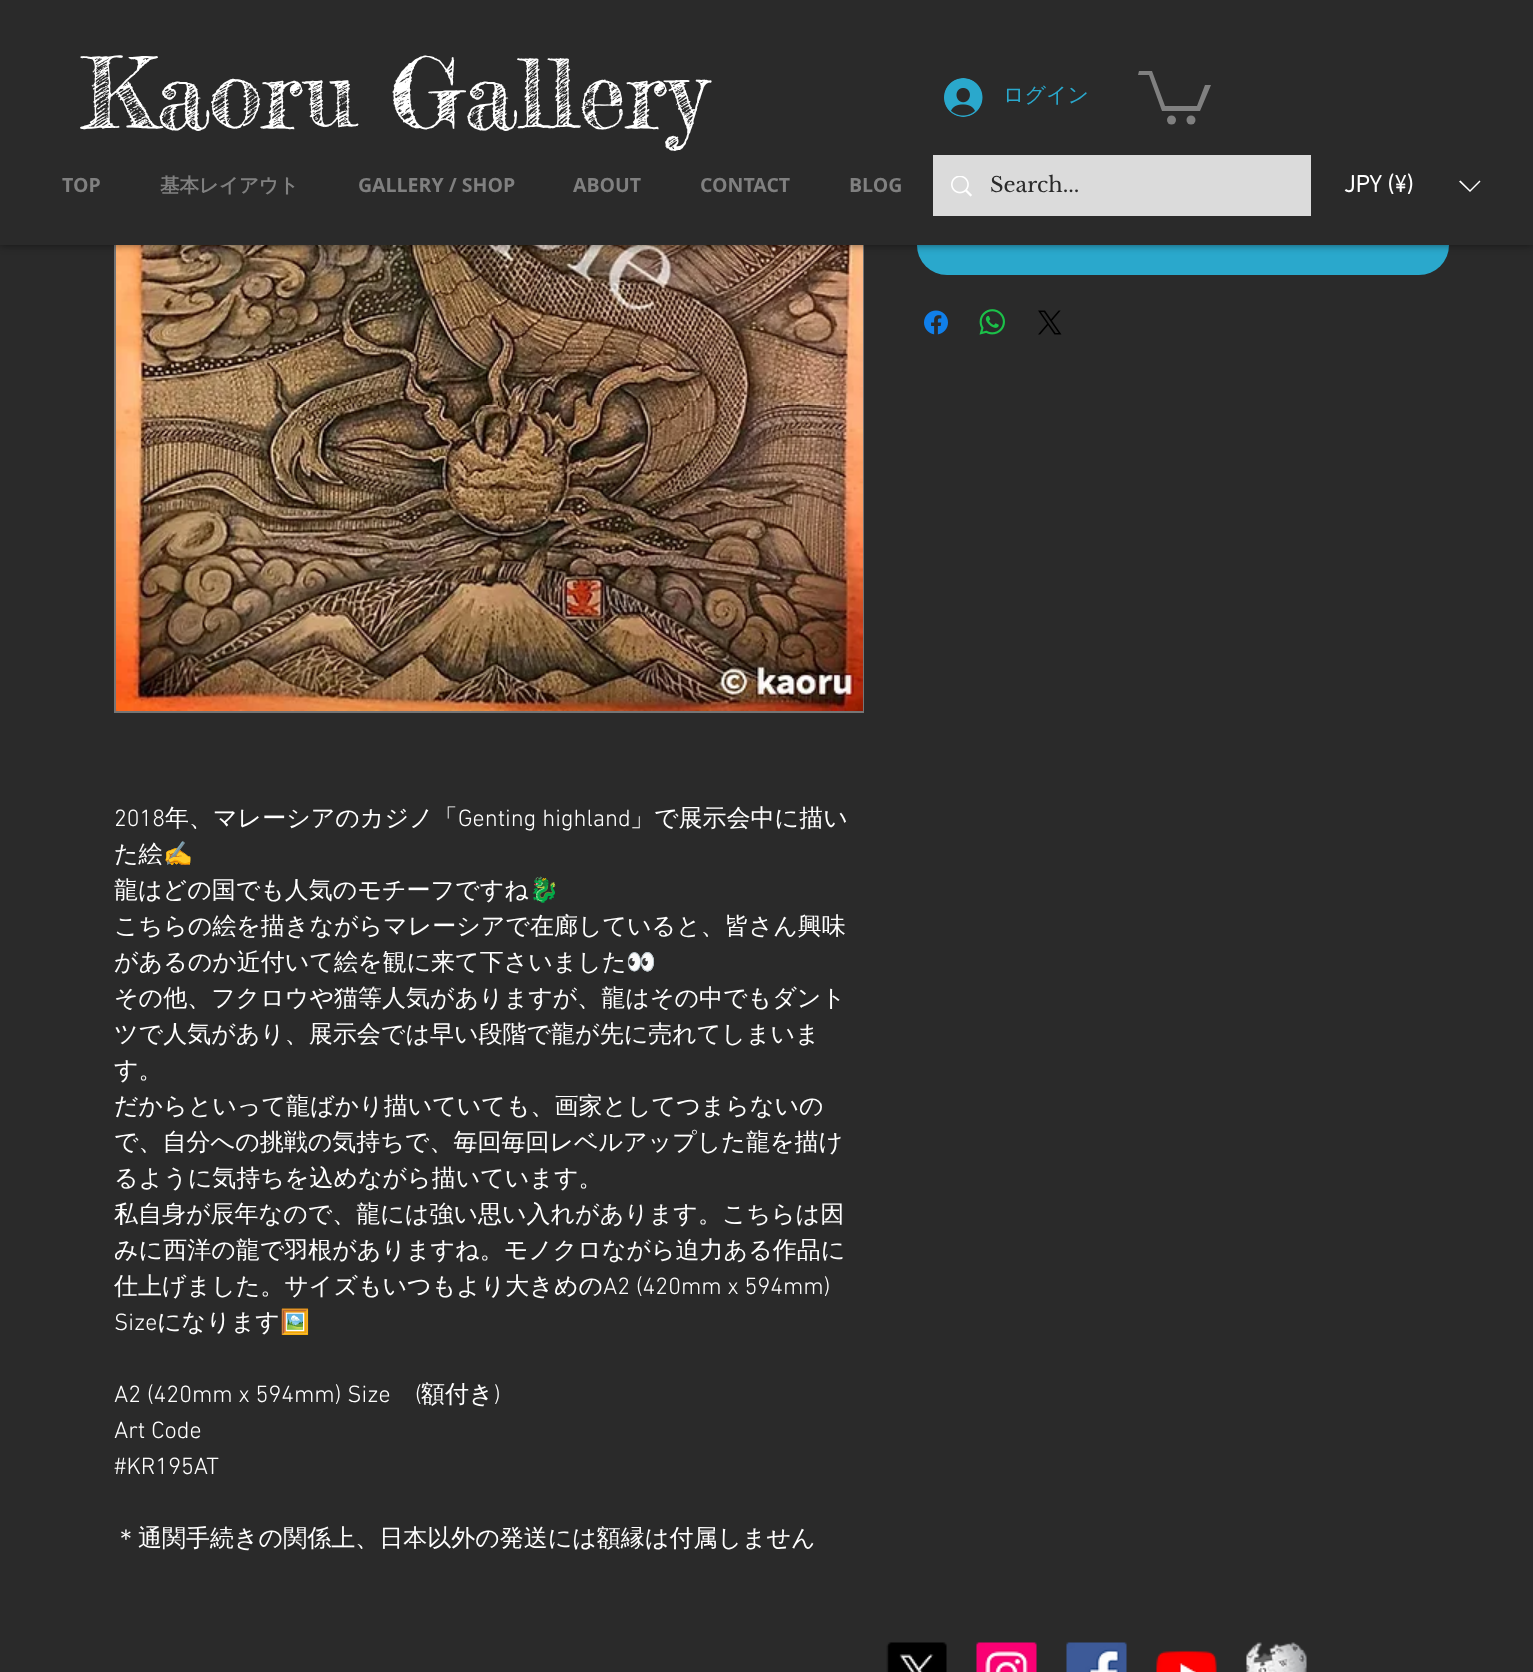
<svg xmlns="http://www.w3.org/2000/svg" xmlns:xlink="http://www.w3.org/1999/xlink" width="1533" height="1672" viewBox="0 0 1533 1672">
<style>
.cls-1{font:96px Fredericka the Great;fill:#ffffff}
.cls-2{font:500 21px WenQuanYi Zen Hei;fill:#2aa8cc}
.cls-3{font:bold 19.5px Open Sans;fill:#808080}
.cls-4{font:bold 19.5px WenQuanYi Zen Hei;fill:#808080}
.cls-5{font:21px Libre Baskerville;fill:#2a2a2a}
.cls-6{font:bold 24px 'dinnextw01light';fill:#ffffff}
.cls-7{font:300 24px 'dinnextw01light';fill:#ffffff}
.cls-8{font:500 24px WenQuanYi Zen Hei;fill:#ffffff}
.cls-9{font:24px Noto Color Emoji;fill:#ffffff}
</style>
<rect width="100%" height="100%" fill="#2a2a2a"/>
<rect fill="#2aa8cc" x="917" y="215" width="532" height="60" rx="30"/>
<rect fill="none" stroke="#757575" stroke-width="2" x="115" y="-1" width="748" height="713"/>
<image xlink:href="image5.png" x="116" y="245" width="747" height="466"/>
<rect fill="#000000" fill-opacity="0.5" filter="blur(4px)" x="0" y="0" width="1533" height="245"/>
<rect fill="#2a2a2a" x="0" y="0" width="1533" height="245"/>
<image xlink:href="image0.png" x="944" y="78" width="39" height="39"/>
<path fill="#808080" d="M1211 85L1200 111H1162L1149 75H1138L1139 71H1152L1165 106H1197L1205 85"/>
<circle fill="#808080" cx="1191" cy="120" r="4.5"/>
<circle fill="#808080" cx="1171.5" cy="120" r="4.5"/>
<rect fill="#dbdbdb" x="933" y="155" width="378" height="61"/>
<image xlink:href="image1.png" x="951" y="176" width="21" height="21"/>
<path fill="#ffffff" fill-rule="evenodd" d="M1479.5 180.5L1480.5 181.5L1470 192L1459 181.5L1460.5 180.5L1470 190Z"/>
<image xlink:href="image2.png" x="924" y="310" width="24" height="25"/>
<image xlink:href="image3.png" x="979" y="309" width="26" height="26"/>
<image xlink:href="image4.png" x="1038" y="310" width="24" height="25"/>
<image xlink:href="image6.png" x="886" y="1642" width="61" height="30"/>
<image xlink:href="image7.png" x="976" y="1642" width="61" height="30"/>
<image xlink:href="image8.png" x="1066" y="1642" width="61" height="30"/>
<image xlink:href="image9.png" x="1156" y="1650" width="61" height="22"/>
<image xlink:href="image10.png" x="1246" y="1642" width="61" height="30"/>
<text class="cls-1" x="82" y="128">Kaoru Gallery</text>
<text class="cls-2" x="1003" y="102">ログイン</text>
<text class="cls-3" x="62" y="192">TOP</text>
<text class="cls-4" x="160" y="192">基本レイアウト</text>
<text class="cls-3" x="358" y="192">GALLERY / SHOP</text>
<text class="cls-3" x="573" y="192">ABOUT</text>
<text class="cls-3" x="700" y="192">CONTACT</text>
<text class="cls-3" x="849" y="192">BLOG</text>
<text class="cls-5" x="990" y="192">Search...</text>
<text class="cls-6" x="1344" y="192">JPY (¥)</text>
<text class="cls-7" x="114" y="826">2018</text>
<text class="cls-8" x="165" y="826">年、マレーシアのカジノ「</text>
<text class="cls-7" x="458" y="826">Genting highland</text>
<text class="cls-8" x="630" y="826">」で展示会中に描い</text>
<text class="cls-8" x="114" y="862">た絵</text>
<text class="cls-9" x="163" y="862">✍️</text>
<text class="cls-8" x="114" y="898">龍はどの国でも人気のモチーフですね</text>
<text class="cls-9" x="529" y="898">🐉</text>
<text class="cls-8"><tspan x="114" y="934">こちらの絵を描きながらマレーシアで在廊していると、皆さん興味</tspan><tspan x="114" y="970">があるのか近付いて絵を観に来て下さいました</tspan></text>
<text class="cls-9" x="626" y="970">👀</text>
<text class="cls-8"><tspan x="114" y="1006">その他、フクロウや猫等人気がありますが、龍はその中でもダント</tspan><tspan x="114" y="1042">ツで人気があり、展示会では早い段階で龍が先に売れてしまいま</tspan><tspan x="114" y="1078">す。</tspan><tspan x="114" y="1114">だからといって龍ばかり描いていても、画家としてつまらないの</tspan><tspan x="114" y="1150">で、自分への挑戦の気持ちで、毎回毎回レベルアップした龍を描け</tspan><tspan x="114" y="1186">るように気持ちを込めながら描いています。</tspan><tspan x="114" y="1222">私自身が辰年なので、龍には強い思い入れがあります。こちらは因</tspan><tspan x="114" y="1258">みに西洋の龍で羽根がありますね。モノクロながら迫力ある作品に</tspan><tspan x="114" y="1294">仕上げました。サイズもいつもより大きめの</tspan></text>
<text class="cls-7" x="603" y="1294">A2 (420mm x 594mm)</text>
<text class="cls-7" x="114" y="1330">Size</text>
<text class="cls-8" x="157" y="1330">になります</text>
<text class="cls-9" x="280" y="1330">🖼️</text>
<text class="cls-7" x="114" y="1402">A2 (420mm x 594mm) Size</text>
<text class="cls-7" x="415" y="1402">(</text>
<text class="cls-8" x="421" y="1402">額付き</text>
<text class="cls-7" x="494" y="1402">)</text>
<text class="cls-7"><tspan x="114" y="1438">Art Code</tspan><tspan x="114" y="1474">#KR195AT</tspan></text>
<text class="cls-8" x="114" y="1546">＊通関手続きの関係上、日本以外の発送には額縁は付属しません</text>
</svg>
